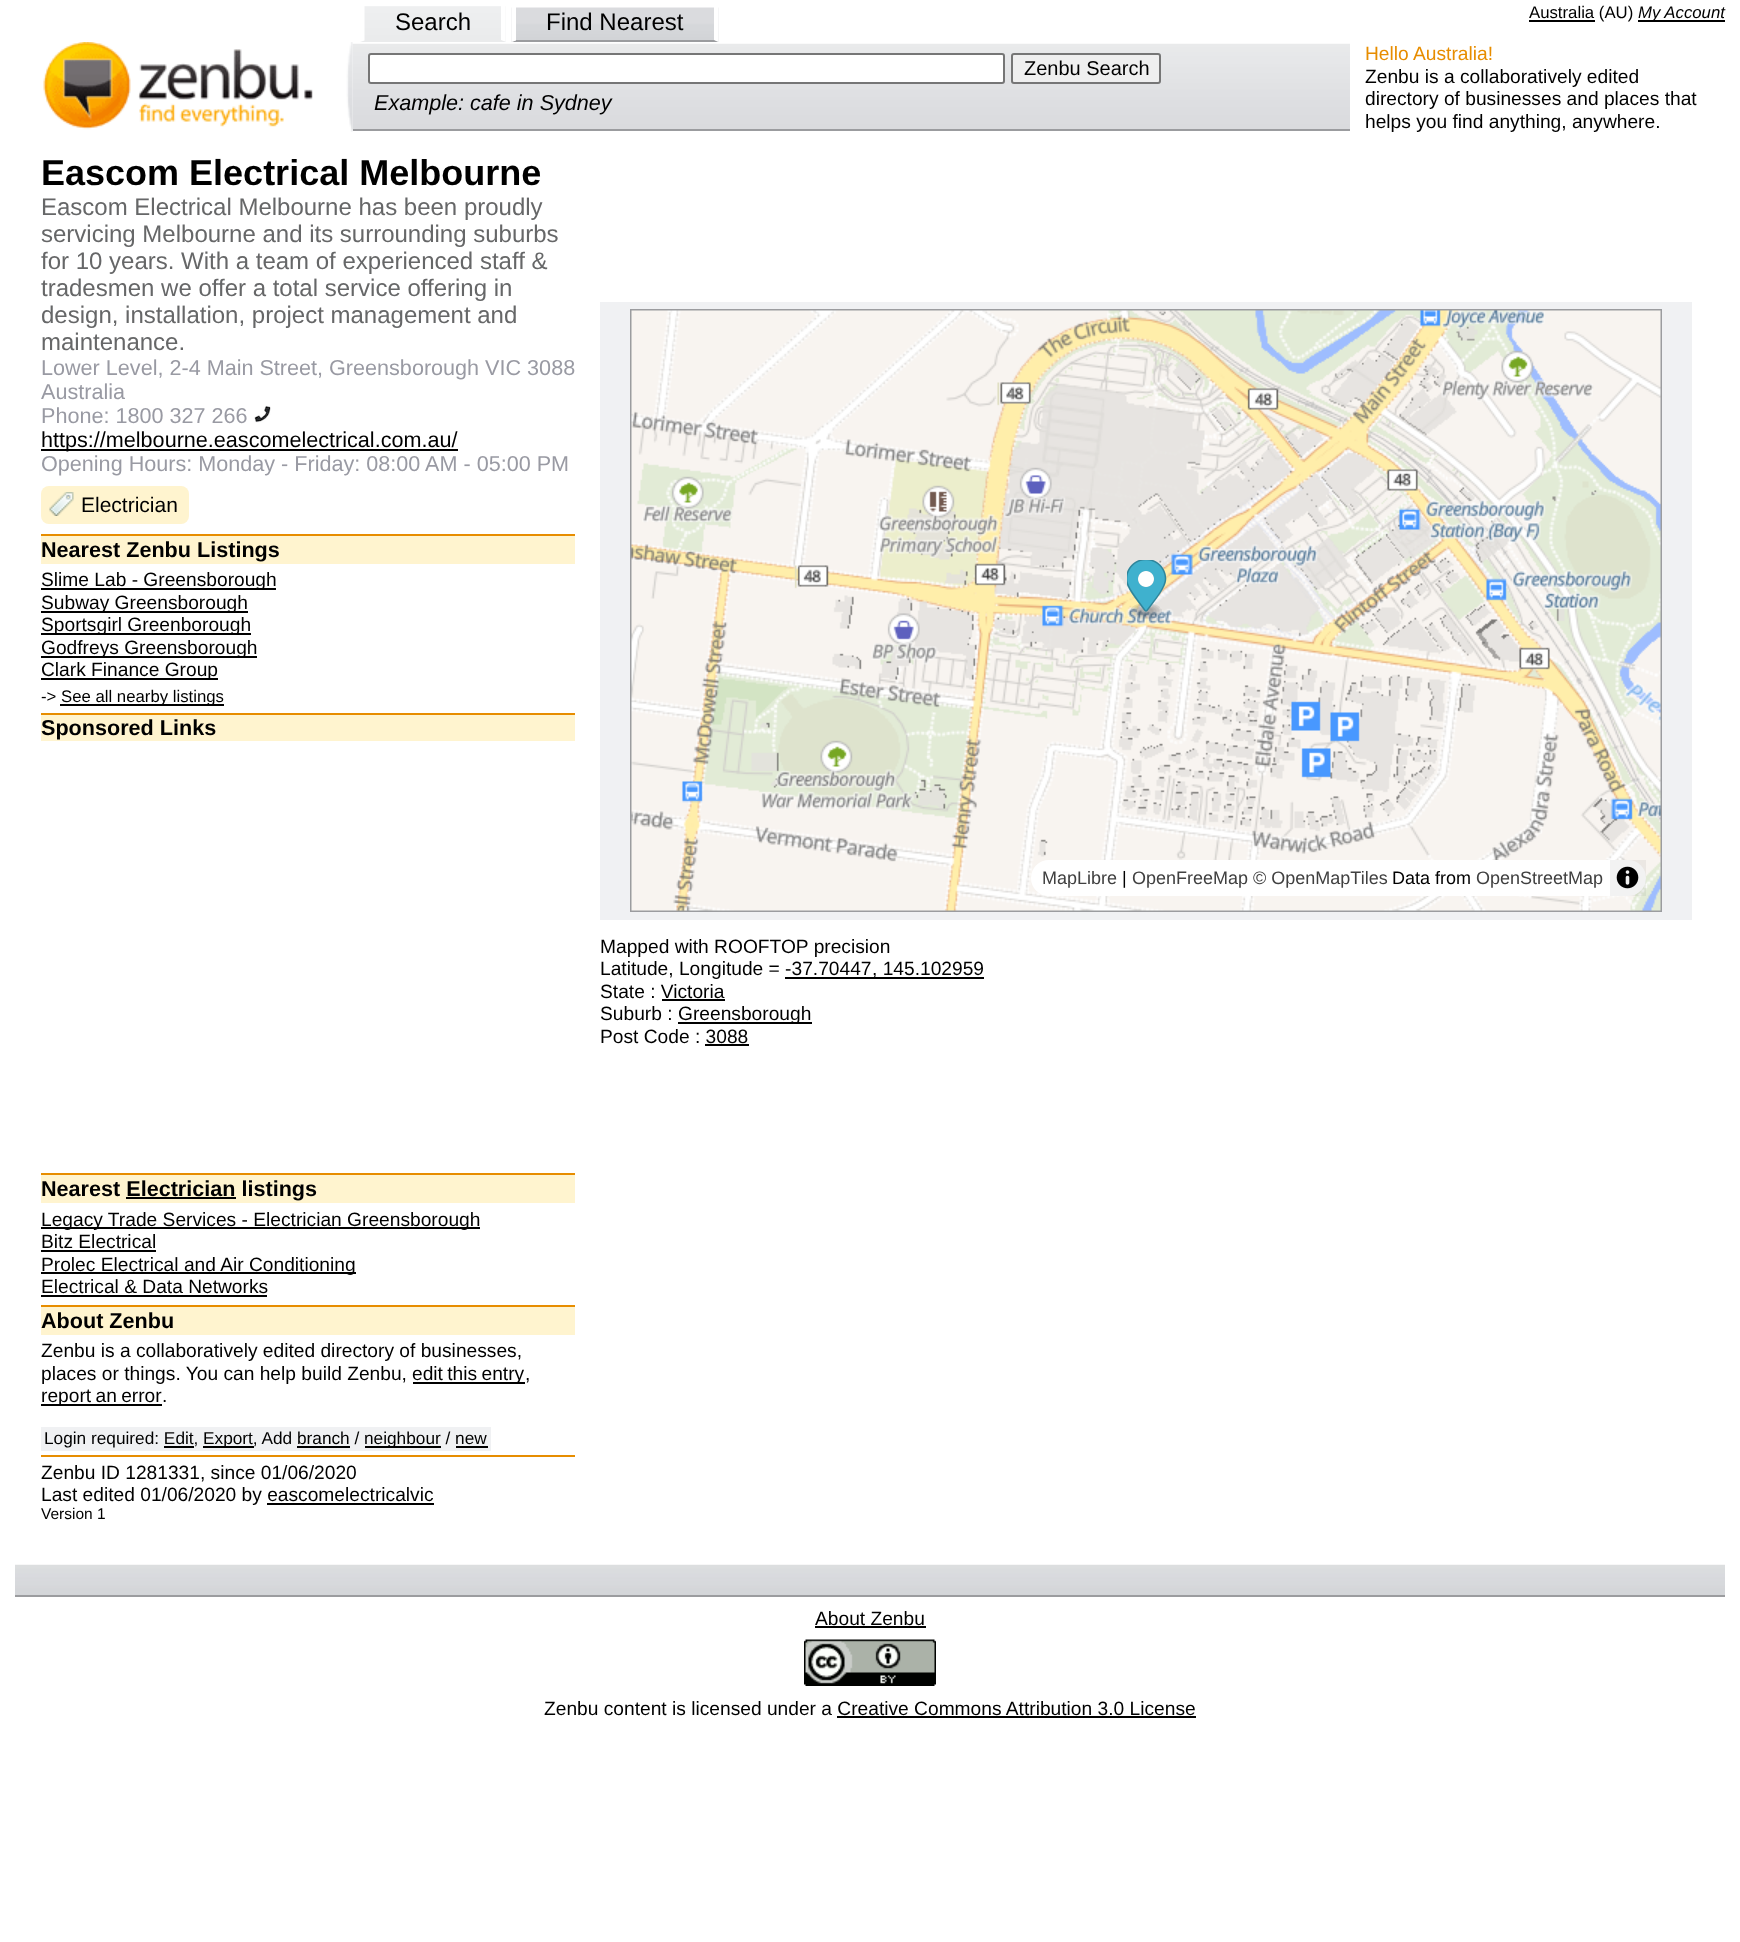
<svg xmlns="http://www.w3.org/2000/svg" xmlns:xlink="http://www.w3.org/1999/xlink" width="1740" height="1942" viewBox="0 0 1740 1942">
<style>
.cls-1{font:16.75px Liberation Sans;fill:#000000}
.cls-2{font:italic 16.75px Liberation Sans;fill:#000000}
.cls-3{font:24px Liberation Sans;fill:#000000}
.cls-4{font:20px Liberation Sans;fill:#000000}
.cls-5{font:italic 21.6px Liberation Sans;fill:#000000}
.cls-6{font:19.2px Liberation Sans;fill:#e78d00}
.cls-7{font:19.2px Liberation Sans;fill:#000000}
.cls-8{font:bold 36px Liberation Sans;fill:#000000}
.cls-9{font:24px Liberation Sans;fill:#666768}
.cls-10{font:21.6px Liberation Sans;fill:#999aa3}
.cls-11{font:21.6px Liberation Sans;fill:#000000}
.cls-12{font:21px Liberation Sans;fill:#000000}
.cls-13{font:bold 21.6px Liberation Sans;fill:#000000}
.cls-14{font:17.25px Liberation Sans;fill:#000000}
.cls-15{font:15.5px Liberation Sans;fill:#000000}
.cls-16{font:18px Liberation Sans;fill:#404040}
.cls-17{font:18px Liberation Sans;fill:#000000}
</style>
<rect width="100%" height="100%" fill="#ffffff"/>
<rect fill="#000000" x="1529" y="20" width="66" height="2"/>
<rect fill="#000000" x="1638" y="20" width="87" height="2"/>
<image xlink:href="image0.png" x="360" y="6" width="146" height="36"/>
<image xlink:href="image1.png" x="511" y="7" width="208" height="35"/>
<path fill="#ffffff" d="M505.5 3V42L501 40.5V3Z"/>
<path fill="#eaebec" d="M506 42H360L364 40H501Z"/>
<path fill="#ffffff" d="M360 42V3H364.5V40.5Z"/>
<path fill="#ffffff" d="M718.5 3V42L714 40.5V3Z"/>
<path fill="#9b9c9f" d="M718 42H512L516 40H714Z"/>
<path fill="#ffffff" d="M511.5 42V3H516V40.5Z"/>
<image xlink:href="image2.png" x="346" y="42" width="7" height="90"/>
<image xlink:href="image3.png" x="43" y="42" width="270" height="88"/>
<image xlink:href="image4.png" x="352" y="43" width="998" height="88"/>
<rect fill="#9b9c9f" x="353" y="129" width="997" height="2"/>
<rect fill="#ffffff" stroke="#767676" stroke-width="2" x="369" y="54" width="635" height="29" rx="2"/>
<rect fill="#efefef" stroke="#767676" stroke-width="2" x="1012" y="54" width="148" height="29" rx="2"/>
<image xlink:href="image5.png" x="254" y="405" width="17" height="18"/>
<rect fill="#000000" x="41" y="449" width="417" height="2"/>
<rect fill="#fff4cf" x="41" y="486" width="148" height="38" rx="8"/>
<image xlink:href="image6.png" x="49" y="492" width="25" height="24"/>
<rect fill="#fff4cf" x="41" y="536" width="534" height="28"/>
<rect fill="#e78d00" x="41" y="534" width="534" height="2"/>
<rect fill="#000000" x="41" y="588" width="235" height="2"/>
<rect fill="#000000" x="41" y="611" width="207" height="2"/>
<rect fill="#000000" x="41" y="633" width="210" height="2"/>
<rect fill="#000000" x="41" y="656" width="216" height="2"/>
<rect fill="#000000" x="41" y="678" width="177" height="2"/>
<rect fill="#000000" x="60" y="704" width="164" height="2"/>
<rect fill="#fff4cf" x="41" y="715" width="534" height="26"/>
<rect fill="#e78d00" x="41" y="713" width="534" height="2"/>
<rect fill="#fff4cf" x="41" y="1175" width="534" height="28"/>
<rect fill="#e78d00" x="41" y="1173" width="534" height="2"/>
<rect fill="#000000" x="126" y="1197" width="110" height="2"/>
<rect fill="#000000" x="41" y="1227" width="439" height="2"/>
<rect fill="#000000" x="41" y="1250" width="115" height="2"/>
<rect fill="#000000" x="41" y="1272" width="315" height="2"/>
<rect fill="#000000" x="41" y="1295" width="226" height="2"/>
<rect fill="#fff4cf" x="41" y="1307" width="534" height="28"/>
<rect fill="#e78d00" x="41" y="1305" width="534" height="2"/>
<rect fill="#000000" x="413" y="1382" width="112" height="2"/>
<rect fill="#000000" x="41" y="1404" width="121" height="2"/>
<rect fill="#f0f1f3" x="41" y="1427" width="450" height="24"/>
<rect fill="#000000" x="164" y="1446" width="30" height="2"/>
<rect fill="#000000" x="203" y="1446" width="51" height="2"/>
<rect fill="#000000" x="297" y="1446" width="53" height="2"/>
<rect fill="#000000" x="365" y="1446" width="76" height="2"/>
<rect fill="#000000" x="456" y="1446" width="32" height="2"/>
<rect fill="#e78d00" x="41" y="1455" width="534" height="2"/>
<rect fill="#000000" x="267" y="1503" width="167" height="2"/>
<rect fill="#f0f1f3" x="600" y="302" width="1092" height="618"/>
<rect fill="none" stroke="#9b9c9f" stroke-width="2" x="631" y="310" width="1030" height="601"/>
<image xlink:href="image7.png" x="631" y="310" width="1030" height="601"/>
<image xlink:href="image8.png" x="1127" y="560" width="40" height="59"/>
<rect fill="#ffffff" x="1031" y="860" width="615" height="36" rx="18"/>
<rect fill="#000000" fill-opacity="0.05" x="1610" y="860" width="36" height="36"/>
<image xlink:href="image9.png" x="1616" y="866" width="23" height="23"/>
<rect fill="#000000" x="785" y="977" width="199" height="2"/>
<rect fill="#000000" x="662" y="999" width="63" height="2"/>
<rect fill="#000000" x="678" y="1022" width="134" height="2"/>
<rect fill="#000000" x="705" y="1044" width="44" height="2"/>
<image xlink:href="image10.png" x="15" y="1564" width="1710" height="31"/>
<rect fill="#9b9c9f" x="15" y="1595" width="1710" height="2"/>
<rect fill="#000000" x="815" y="1626" width="111" height="2"/>
<image xlink:href="image11.png" x="804" y="1639" width="132" height="47"/>
<rect fill="#000000" x="837" y="1716" width="359" height="2"/>
<text class="cls-1" x="1529" y="18">Australia (AU)</text>
<text class="cls-2" x="1638" y="18">My Account</text>
<text class="cls-3" x="395" y="30">Search</text>
<text class="cls-3" x="546" y="30">Find Nearest</text>
<text class="cls-4" x="1024" y="75">Zenbu Search</text>
<text class="cls-5" x="374" y="110">Example: cafe in Sydney</text>
<text class="cls-6" x="1365" y="60">Hello Australia!</text>
<text class="cls-7"><tspan x="1365" y="83">Zenbu is a collaboratively edited</tspan><tspan x="1365" y="105">directory of businesses and places that</tspan><tspan x="1365" y="128">helps you find anything, anywhere.</tspan></text>
<text class="cls-8" x="41" y="185">Eascom Electrical Melbourne</text>
<text class="cls-9"><tspan x="41" y="215">Eascom Electrical Melbourne has been proudly</tspan><tspan x="41" y="242">servicing Melbourne and its surrounding suburbs</tspan><tspan x="41" y="269">for 10 years. With a team of experienced staff &amp;</tspan><tspan x="41" y="296">tradesmen we offer a total service offering in</tspan><tspan x="41" y="323">design, installation, project management and</tspan><tspan x="41" y="350">maintenance.</tspan></text>
<text class="cls-10"><tspan x="41" y="375">Lower Level, 2-4 Main Street, Greensborough VIC 3088</tspan><tspan x="41" y="399">Australia</tspan><tspan x="41" y="423">Phone: 1800 327 266</tspan></text>
<text class="cls-11" x="41" y="447">https://melbourne.eascomelectrical.com.au/</text>
<text class="cls-10" x="41" y="471">Opening Hours: Monday - Friday: 08:00 AM - 05:00 PM</text>
<text class="cls-12" x="81" y="512">Electrician</text>
<text class="cls-13" x="41" y="557">Nearest Zenbu Listings</text>
<text class="cls-7"><tspan x="41" y="586">Slime Lab - Greensborough</tspan><tspan x="41" y="609">Subway Greensborough</tspan><tspan x="41" y="631">Sportsgirl Greenborough</tspan><tspan x="41" y="654">Godfreys Greensborough</tspan><tspan x="41" y="676">Clark Finance Group</tspan></text>
<text class="cls-1" x="41" y="702">-&gt;</text>
<text class="cls-1" x="61" y="702">See all nearby listings</text>
<text class="cls-13" x="41" y="735">Sponsored Links</text>
<text class="cls-13" x="41" y="1196">Nearest Electrician listings</text>
<text class="cls-7"><tspan x="41" y="1226">Legacy Trade Services - Electrician Greensborough</tspan><tspan x="41" y="1248">Bitz Electrical</tspan><tspan x="41" y="1271">Prolec Electrical and Air Conditioning</tspan><tspan x="41" y="1293">Electrical &amp; Data Networks</tspan></text>
<text class="cls-13" x="41" y="1328">About Zenbu</text>
<text class="cls-7"><tspan x="41" y="1357">Zenbu is a collaboratively edited directory of businesses,</tspan><tspan x="41" y="1380">places or things. You can help build Zenbu,</tspan></text>
<text class="cls-7" x="412" y="1380" word-spacing="-1">edit this entry</text>
<text class="cls-7" x="525" y="1380">,</text>
<text class="cls-7" x="41" y="1402" word-spacing="-1">report an error</text>
<text class="cls-7" x="162" y="1402">.</text>
<text class="cls-14" x="44" y="1444">Login required: Edit,</text>
<text class="cls-14" x="203" y="1444">Export, Add branch /</text>
<text class="cls-14" x="364" y="1444">neighbour / new</text>
<text class="cls-7"><tspan x="41" y="1479">Zenbu ID 1281331, since 01/06/2020</tspan><tspan x="41" y="1501">Last edited 01/06/2020 by eascomelectricalvic</tspan></text>
<text class="cls-15" x="41" y="1519">Version 1</text>
<text class="cls-16" x="1042" y="884">MapLibre</text>
<text class="cls-17" x="1122" y="884">|</text>
<text class="cls-16" x="1132" y="884">OpenFreeMap © OpenMapTiles</text>
<text class="cls-17" x="1392" y="884">Data from</text>
<text class="cls-16" x="1476" y="884">OpenStreetMap</text>
<text class="cls-7"><tspan x="600" y="953">Mapped with ROOFTOP precision</tspan><tspan x="600" y="975">Latitude, Longitude = -37.70447</tspan></text>
<text class="cls-7" x="872" y="975">, 145.102959</text>
<text class="cls-7"><tspan x="600" y="998">State : Victoria</tspan><tspan x="600" y="1020">Suburb :</tspan></text>
<text class="cls-7" x="678" y="1020">Greensborough</text>
<text class="cls-7" x="600" y="1043">Post Code : 3088</text>
<text class="cls-7" x="815" y="1625">About Zenbu</text>
<text class="cls-7" x="544" y="1715">Zenbu content is licensed under a Creative Commons Attribution 3.0 License</text>
</svg>
